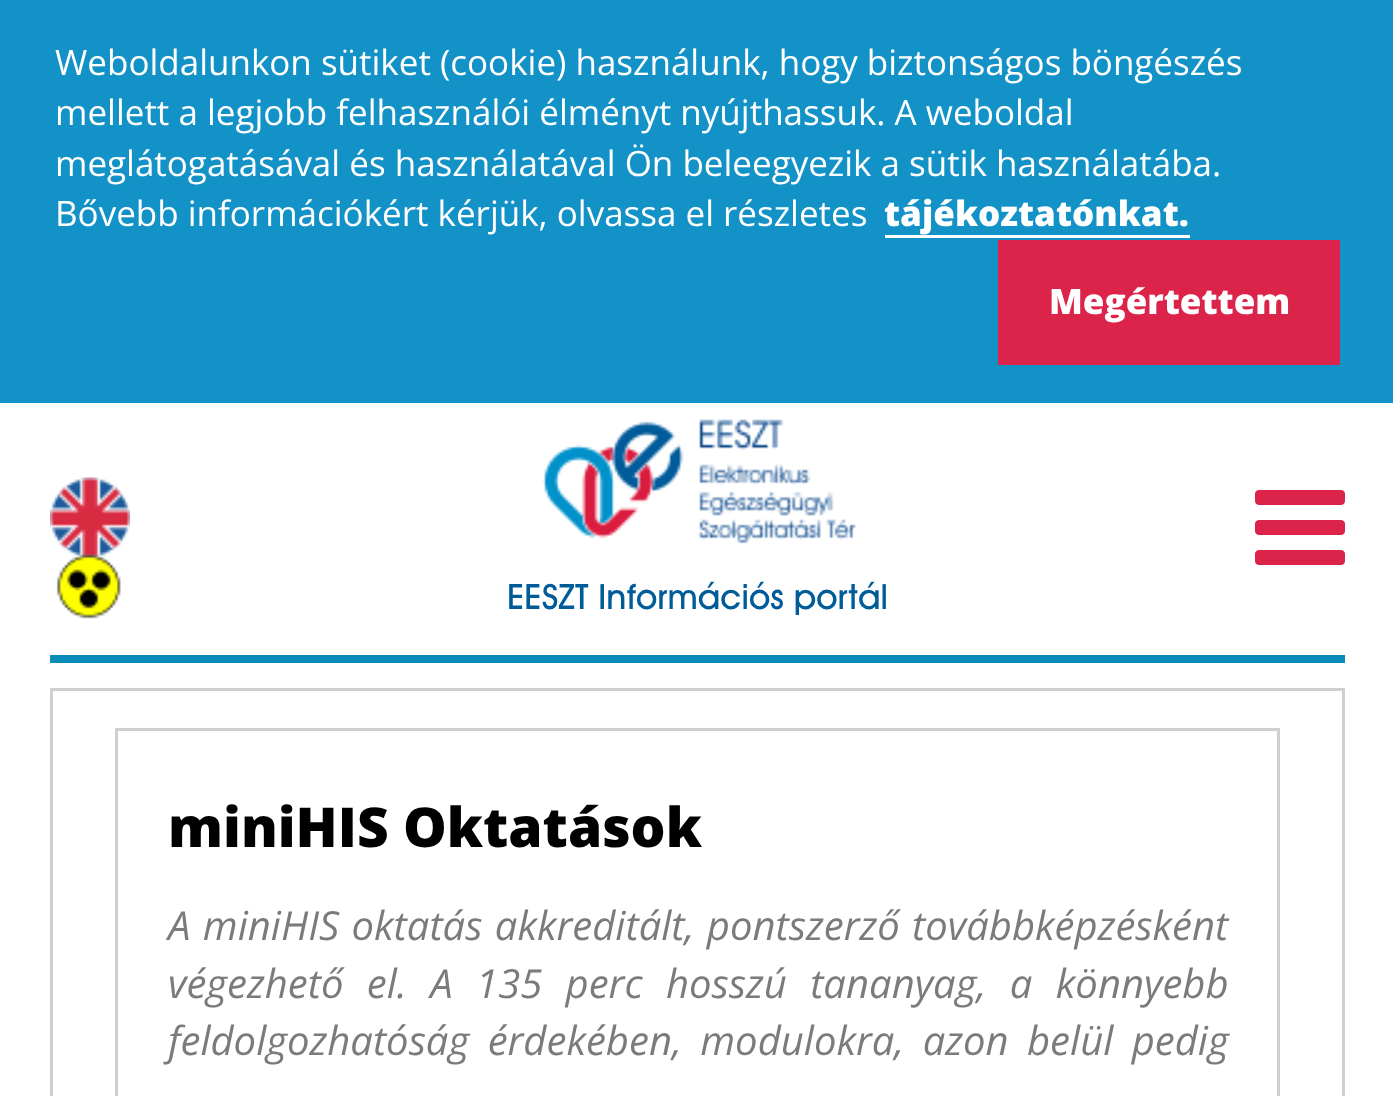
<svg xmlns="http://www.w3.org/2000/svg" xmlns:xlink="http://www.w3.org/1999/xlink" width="1393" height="1096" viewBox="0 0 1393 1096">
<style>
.cls-1{font:35px Open Sans;fill:#ffffff}
.cls-2{font:800 35px Open Sans;fill:#ffffff}
.cls-3{font:bold 35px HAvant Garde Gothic;fill:#005c99}
.cls-4{font:800 55px Open Sans;fill:#000000}
.cls-5{font:italic 40px Open Sans;fill:#7b7b7b}
</style>
<rect width="100%" height="100%" fill="#ffffff"/>
<rect fill="#1392c7" x="0" y="0" width="1393" height="403"/>
<rect fill="#ffffff" x="885" y="235" width="305" height="3"/>
<rect fill="#dc244a" x="998" y="240" width="342" height="125"/>
<rect fill="#0a8bb8" x="50" y="655" width="1295" height="8"/>
<image xlink:href="image0.png" x="50" y="477" width="80" height="81"/>
<image xlink:href="image1.png" x="1255" y="490" width="90" height="75"/>
<image xlink:href="image2.png" x="56" y="554" width="65" height="65"/>
<image xlink:href="image3.png" x="542" y="419" width="314" height="125"/>
<rect fill="none" stroke="#cfcfcf" stroke-width="3" x="51.5" y="689.5" width="1292" height="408"/>
<rect fill="none" stroke="#cfcfcf" stroke-width="3" x="116.5" y="729.5" width="1162" height="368"/>
<text class="cls-1"><tspan x="55" y="75">Weboldalunkon sütiket (cookie) használunk, hogy biztonságos böngészés</tspan><tspan x="55" y="125">mellett a legjobb felhasználói élményt nyújthassuk. A weboldal</tspan><tspan x="55" y="176">meglátogatásával és használatával Ön beleegyezik a sütik használatába.</tspan><tspan x="55" y="226">Bővebb információkért kérjük, olvassa el részletes</tspan></text>
<text class="cls-2" x="884" y="226">tájékoztatónkat.</text>
<text class="cls-2" x="1049" y="314">Megértettem</text>
<text class="cls-3" x="507" y="609">EESZT Információs portál</text>
<text class="cls-4" x="168" y="847">miniHIS Oktatások</text>
<text class="cls-5"><tspan x="168" y="940" word-spacing="2">A miniHIS oktatás akkreditált, pontszerző továbbképzésként</tspan><tspan x="168" y="998" word-spacing="13">végezhető el. A 135 perc hosszú tananyag, a könnyebb</tspan><tspan x="168" y="1055" word-spacing="8">feldolgozhatóság érdekében, modulokra, azon belül pedig</tspan></text>
</svg>
